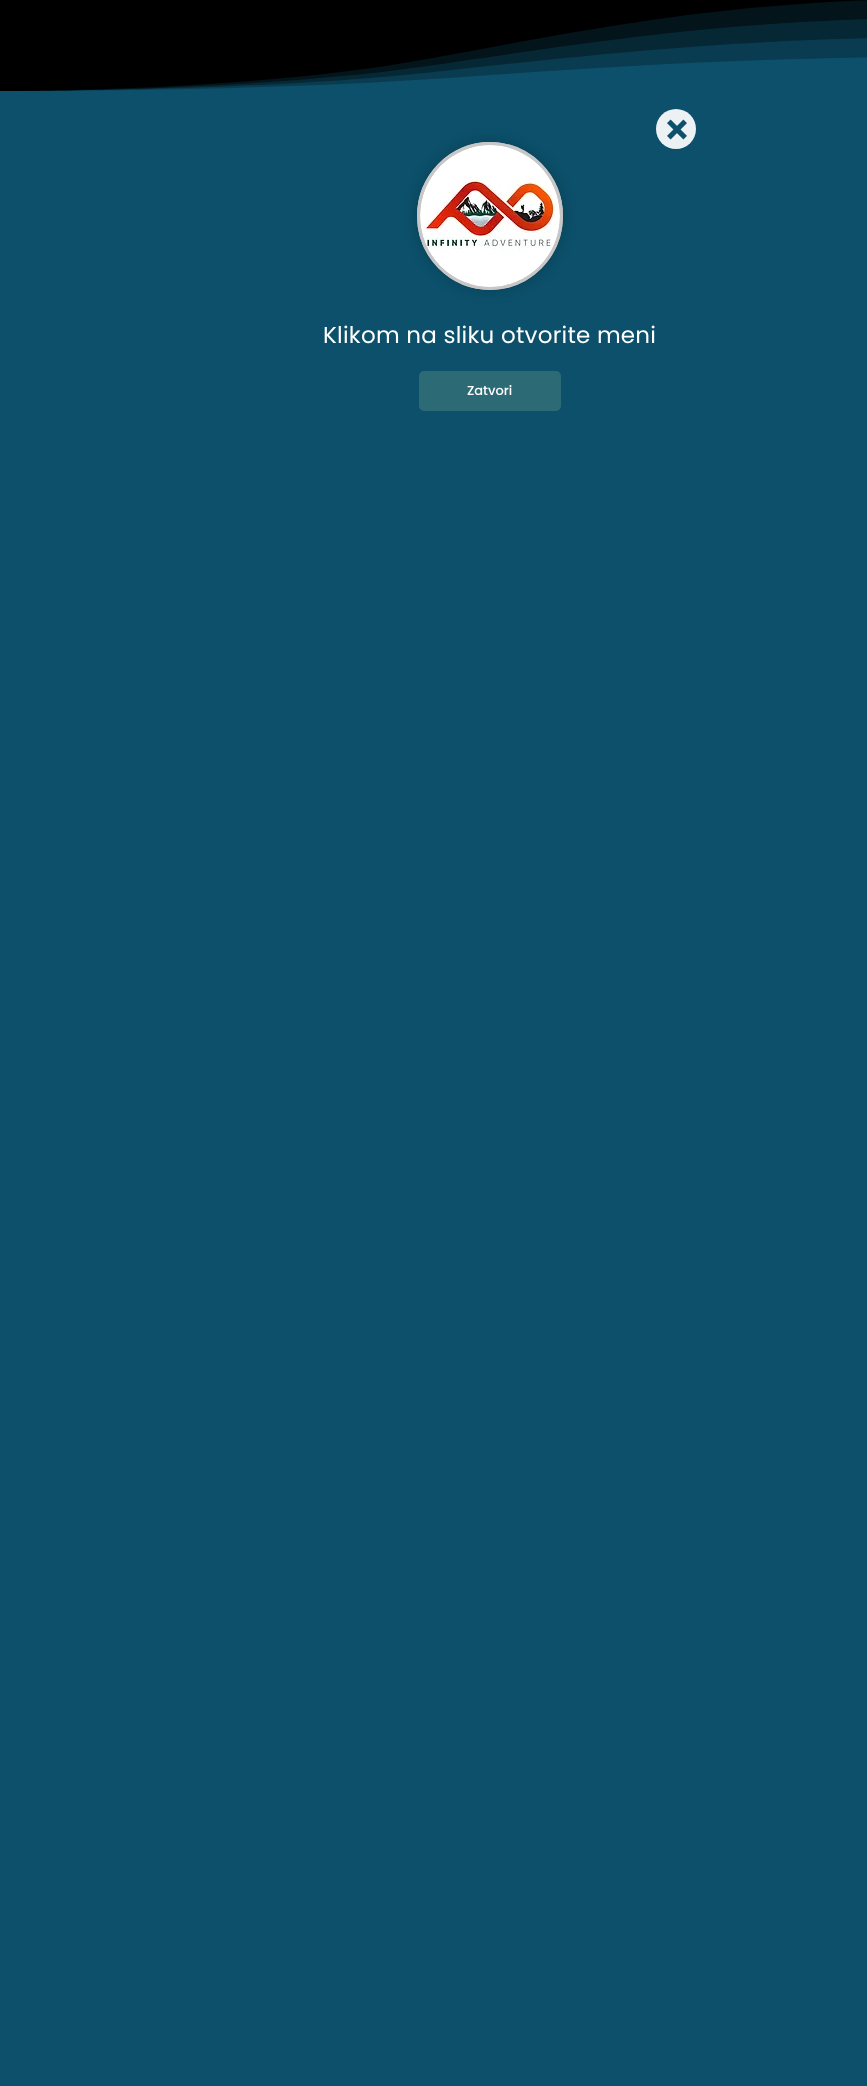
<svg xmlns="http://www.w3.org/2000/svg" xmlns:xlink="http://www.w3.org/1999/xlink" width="867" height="2086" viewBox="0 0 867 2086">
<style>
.cls-1{font:23px Poppins;letter-spacing:0.25px;fill:#ffffff}
.cls-2{font:500 13px Poppins;fill:#ffffff}
</style>
<rect width="100%" height="100%" fill="#0c506b"/>
<image xlink:href="image2.png" x="12" y="56" width="855" height="35"/>
<rect fill="#093c50" x="443" y="36" width="424" height="20"/>
<image xlink:href="image1.png" x="12" y="36" width="855" height="55"/>
<rect fill="#062835" x="553" y="16" width="314" height="20"/>
<image xlink:href="image0.png" x="12" y="16" width="855" height="75"/>
<rect fill="#03141b" x="681" y="0" width="186" height="16"/>
<path fill="#000000" d="M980-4V-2C748-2 627 22 427 59C250 92 0 91 0 91V-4Z"/>
<circle fill="#ecf1f3" cx="676" cy="129" r="20"/>
<image xlink:href="image3.png" x="667" y="119" width="20" height="21"/>
<rect fill="#000000" fill-opacity="0.2" filter="blur(7px)" x="417" y="142" width="146" height="148" rx="73"/>
<ellipse fill="#c7c7c7" cx="490" cy="216" rx="73" ry="74"/>
<path fill="none" stroke="#c7c7c7" stroke-width="3" d="M490 143.5C529.5 143.5 561.5 176 561.5 216C561.5 256 529.5 288.5 490 288.5C450.5 288.5 418.5 256 418.5 216C418.5 176 450.5 143.5 490 143.5Z"/>
<image xlink:href="image4.png" x="420" y="145" width="140" height="142"/>
<rect fill="#2c6a76" x="419" y="371" width="142" height="40" rx="5"/>
<text class="cls-1" x="323" y="343">Klikom na sliku otvorite meni</text>
<text class="cls-2" x="467" y="395">Zatvori</text>
</svg>
